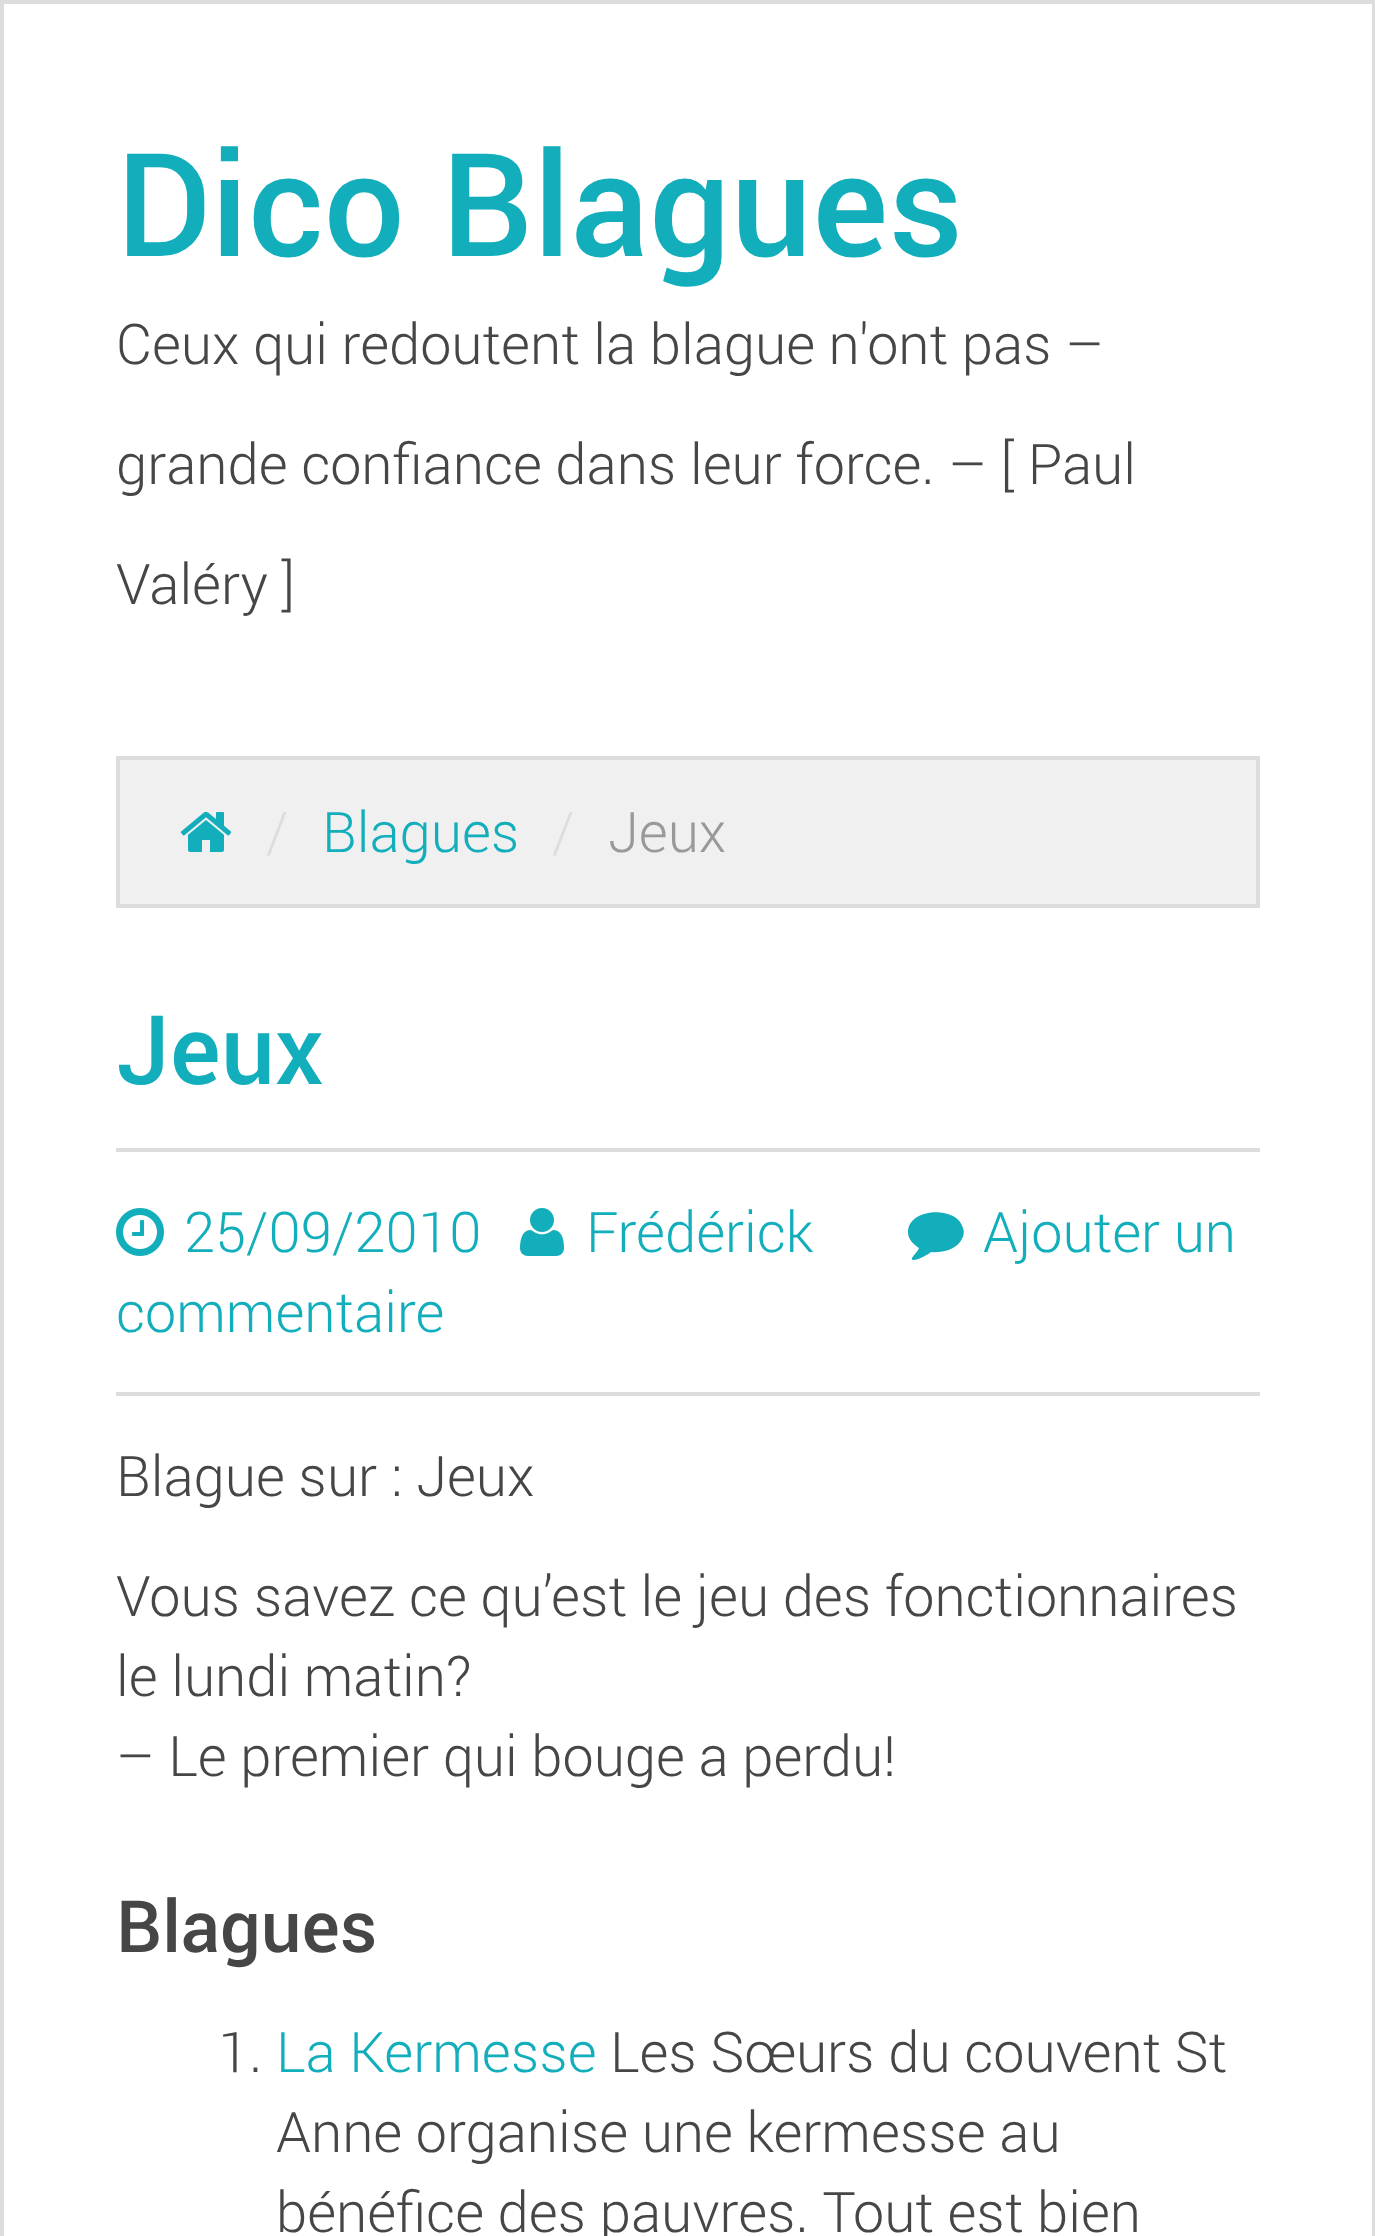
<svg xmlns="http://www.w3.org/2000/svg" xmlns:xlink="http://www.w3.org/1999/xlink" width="1375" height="2236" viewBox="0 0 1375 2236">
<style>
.cls-1{font:500 144px Roboto;fill:#12aebb}
.cls-2{font:300 56px Roboto;fill:#464646}
.cls-3{font:300 56px Roboto;fill:#dddddd}
.cls-4{font:300 56px Roboto;fill:#12aebb}
.cls-5{font:300 56px Roboto;fill:#999999}
.cls-6{font:500 96px Roboto;fill:#12aebb}
.cls-7{font:500 72px Roboto;fill:#464646}
</style>
<rect width="100%" height="100%" fill="#ffffff"/>
<rect fill="none" stroke="#dddddd" stroke-width="4" x="2" y="2" width="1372" height="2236"/>
<rect fill="#f0f0f0" stroke="#dddddd" stroke-width="4" x="118" y="758" width="1140" height="148"/>
<image xlink:href="image0.png" x="180" y="811" width="52" height="41"/>
<rect fill="#dddddd" x="116" y="1148" width="1144" height="4"/>
<rect fill="#dddddd" x="116" y="1392" width="1144" height="4"/>
<path fill="#12aebb" d="M908 1232C908 1208 957 1205 963 1228C965 1233 963 1238 960 1242C954 1250 942 1253 931 1252C928 1255 912 1263 912 1259V1258C914 1254 917 1253 919 1248C913 1244 908 1239 908 1232Z"/>
<image xlink:href="image1.png" x="116" y="1208" width="48" height="48"/>
<image xlink:href="image2.png" x="520" y="1208" width="44" height="48"/>
<text class="cls-1" x="116" y="256">Dico Blagues</text>
<text class="cls-2" x="116" y="364">Ceux qui redoutent la blague n'ont pas –</text>
<text class="cls-2" x="116" y="484">grande confiance dans leur force. – [ Paul</text>
<text class="cls-2" x="116" y="604">Valéry ]</text>
<text class="cls-3" x="266" y="852">/</text>
<text class="cls-4" x="322" y="852">Blagues</text>
<text class="cls-3" x="552" y="852">/</text>
<text class="cls-5" x="608" y="852">Jeux</text>
<text class="cls-6" x="116" y="1084">Jeux</text>
<text class="cls-4" x="983" y="1252">Ajouter un</text>
<text class="cls-4" x="116" y="1332">commentaire</text>
<text class="cls-4" x="184" y="1252">25/09/2010</text>
<text class="cls-4" x="586" y="1252">Frédérick</text>
<text class="cls-2" x="116" y="1496">Blague sur : Jeux</text>
<text class="cls-2"><tspan x="116" y="1616">Vous savez ce qu’est le jeu des fonctionnaires</tspan><tspan x="116" y="1696">le lundi matin?</tspan><tspan x="116" y="1776">– Le premier qui bouge a perdu!</tspan></text>
<text class="cls-7" x="116" y="1952">Blagues</text>
<text class="cls-2" x="218" y="2072">1.</text>
<text class="cls-4" x="276" y="2072">La Kermesse</text>
<text class="cls-2" x="610" y="2072">Les Sœurs du couvent St</text>
<text class="cls-2"><tspan x="276" y="2152">Anne organise une kermesse au</tspan><tspan x="276" y="2232">bénéfice des pauvres. Tout est bien</tspan></text>
</svg>
